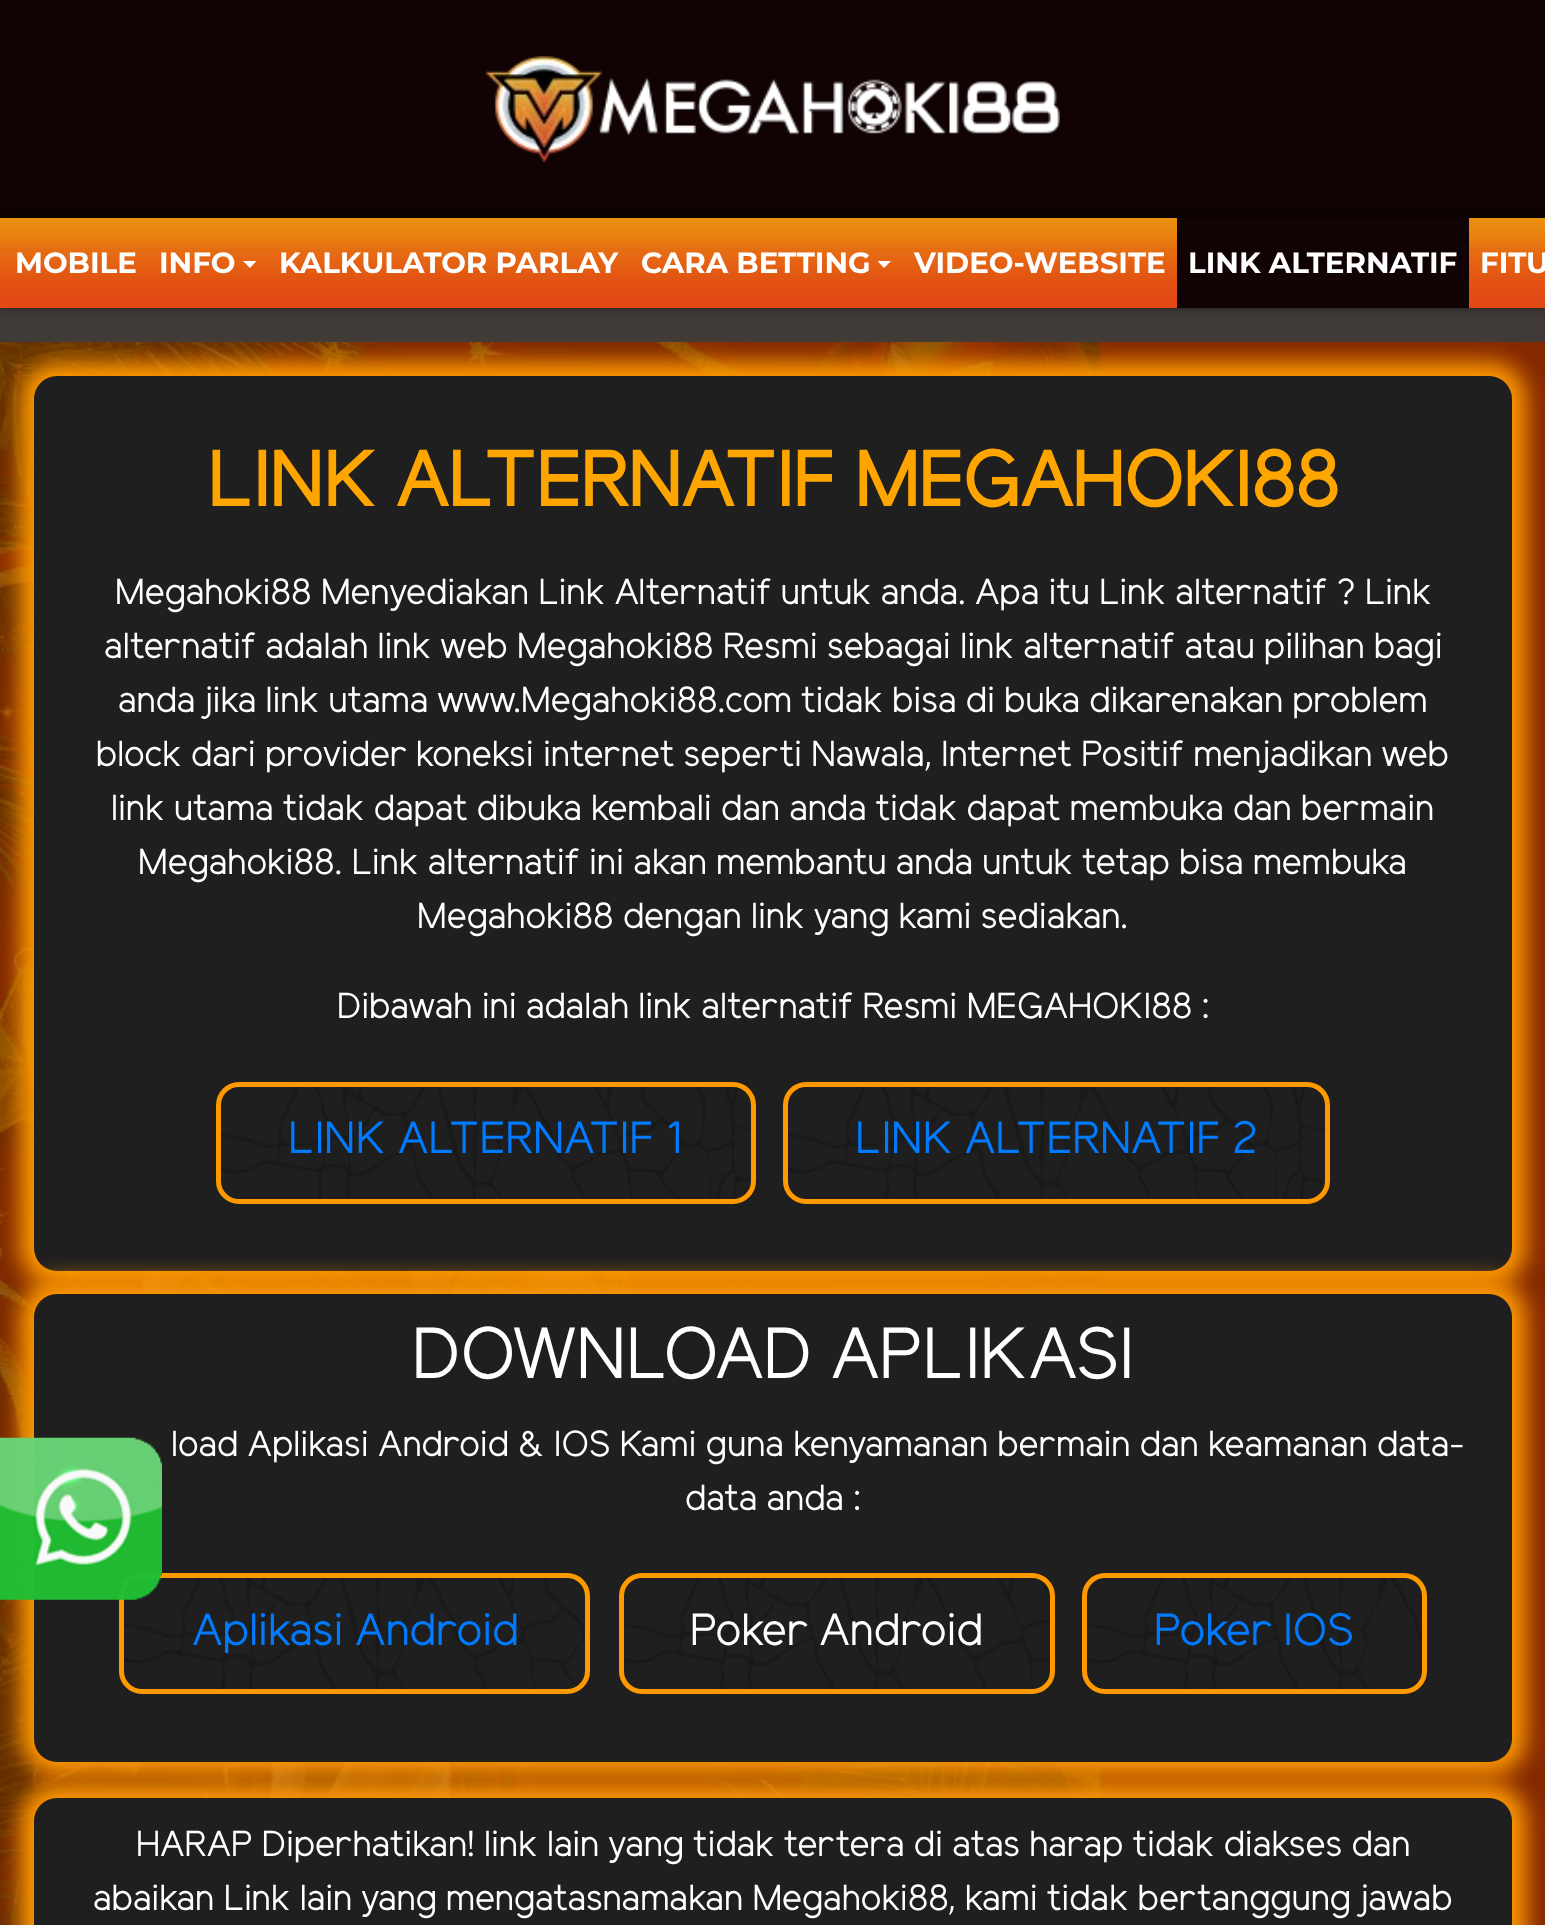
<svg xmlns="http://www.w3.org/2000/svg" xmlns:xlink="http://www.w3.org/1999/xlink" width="1545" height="1925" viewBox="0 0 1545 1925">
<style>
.cls-1{font:bold 29.25px Montserrat;fill:#ffffff}
.cls-2{font:bold 77.25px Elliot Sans;fill:#ffa500}
.cls-3{font:36px Elliot Sans;fill:#ffffff}
.cls-4{font:45px Elliot Sans;fill:#007bff}
.cls-5{font:72px Elliot Sans;fill:#ffffff}
.cls-6{font:45px Elliot Sans;fill:#ffffff}
</style>
<defs>
<linearGradient id="g1" gradientUnits="userSpaceOnUse" x1="773" y1="218" x2="773" y2="308"><stop offset="0" stop-color="#ed9807"/><stop offset="0.01" stop-color="#ea9216"/><stop offset="0.02" stop-color="#e98d08"/><stop offset="0.02" stop-color="#ea9111"/><stop offset="0.03" stop-color="#ec8d0d"/><stop offset="0.1" stop-color="#e88a10"/><stop offset="0.14" stop-color="#e98611"/><stop offset="0.16" stop-color="#e8830d"/><stop offset="0.21" stop-color="#e97f11"/><stop offset="0.23" stop-color="#e77d0f"/><stop offset="0.28" stop-color="#e87910"/><stop offset="0.29" stop-color="#e77713"/><stop offset="0.35" stop-color="#e56e10"/><stop offset="0.41" stop-color="#e66a14"/><stop offset="0.46" stop-color="#e56413"/><stop offset="0.51" stop-color="#e66114"/><stop offset="0.56" stop-color="#e25f11"/><stop offset="0.6" stop-color="#e45914"/><stop offset="0.62" stop-color="#e35911"/><stop offset="0.65" stop-color="#e15613"/><stop offset="0.67" stop-color="#e15613"/><stop offset="0.68" stop-color="#e45415"/><stop offset="0.83" stop-color="#e24d13"/><stop offset="0.85" stop-color="#e24c17"/><stop offset="0.99" stop-color="#e34915"/><stop offset="1" stop-color="#e24812"/></linearGradient>
</defs>
<rect width="100%" height="100%" fill="#403b38"/>
<rect fill="#110303" x="0" y="0" width="1545" height="218"/>
<image xlink:href="image0.png" x="486" y="56" width="574" height="106"/>
<rect fill="#000000" fill-opacity="0.7" filter="blur(5.5px)" x="0" y="216" width="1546" height="90"/>
<rect fill="url(#g1)" x="0" y="218" width="1545" height="90"/>
<path fill="#ffffff" d="M243 261H256.5L250 268Z"/>
<path fill="#ffffff" d="M877.5 261H891L884 268Z"/>
<rect fill="#110303" x="1177" y="218" width="292" height="90"/>
<image xlink:href="image2.png" x="0" y="342" width="1545" height="1583"/>
<rect fill="#ff9900" filter="blur(11px)" x="20" y="362" width="1506" height="923" rx="36"/>
<rect fill="#1f1f1f" x="34" y="376" width="1478" height="895" rx="23"/>
<rect fill="#ff9900" filter="blur(11px)" x="20" y="1280" width="1506" height="495" rx="36"/>
<rect fill="#1f1f1f" x="34" y="1294" width="1478" height="468" rx="23"/>
<image xlink:href="image5.png" x="121" y="1578" width="464" height="112"/>
<rect fill="none" stroke="#ff9900" stroke-width="5" x="121.5" y="1575.5" width="466" height="116" rx="20.5"/>
<image xlink:href="image1.png" x="0" y="1437" width="162" height="163"/>
<image xlink:href="image3.png" x="217" y="1087" width="539" height="112"/>
<rect fill="none" stroke="#ff9900" stroke-width="5" x="218.5" y="1084.5" width="535" height="117" rx="20.5"/>
<image xlink:href="image4.png" x="784" y="1087" width="545" height="112"/>
<rect fill="none" stroke="#ff9900" stroke-width="5" x="785.5" y="1084.5" width="542" height="117" rx="20.5"/>
<image xlink:href="image6.png" x="624" y="1574" width="426" height="120"/>
<rect fill="none" stroke="#ff9900" stroke-width="5" x="621.5" y="1575.5" width="431" height="116" rx="20.5"/>
<image xlink:href="image7.png" x="1084" y="1576" width="338" height="113"/>
<rect fill="none" stroke="#ff9900" stroke-width="5" x="1084.5" y="1575.5" width="340" height="116" rx="20.5"/>
<rect fill="#ff9900" filter="blur(11px)" x="20" y="1784" width="1506" height="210" rx="36"/>
<rect fill="#1f1f1f" x="34" y="1798" width="1478" height="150" rx="23"/>
<text class="cls-1" x="15" y="273">MOBILE</text>
<text class="cls-1" x="159" y="273">INFO</text>
<text class="cls-1" x="279" y="273">KALKULATOR PARLAY</text>
<text class="cls-1" x="641" y="273">CARA BETTING</text>
<text class="cls-1" x="914" y="273">VIDEO-WEBSITE</text>
<text class="cls-1" x="1188" y="273">LINK ALTERNATIF</text>
<text class="cls-1" x="1480" y="273">FITU</text>
<text class="cls-2" x="207" y="506">LINK ALTERNATIF MEGAHOKI88</text>
<text class="cls-3" x="115" y="604">Megahoki88 Menyediakan Link Alternatif untuk anda. Apa itu Link alternatif ? Link</text>
<text class="cls-3" x="104" y="658">alternatif adalah link web Megahoki88 Resmi sebagai link alternatif atau pilihan bagi</text>
<text class="cls-3" x="118" y="712">anda jika link utama www.Megahoki88.com tidak bisa di buka dikarenakan problem</text>
<text class="cls-3" x="96" y="766">block dari provider koneksi internet seperti Nawala, Internet Positif menjadikan web</text>
<text class="cls-3" x="111" y="820">link utama tidak dapat dibuka kembali dan anda tidak dapat membuka dan bermain</text>
<text class="cls-3" x="138" y="874">Megahoki88. Link alternatif ini akan membantu anda untuk tetap bisa membuka</text>
<text class="cls-3" x="417" y="928">Megahoki88 dengan link yang kami sediakan.</text>
<text class="cls-3" x="337" y="1018">Dibawah ini adalah link alternatif Resmi MEGAHOKI88 :</text>
<text class="cls-4" x="288" y="1153">LINK ALTERNATIF 1</text>
<text class="cls-4" x="855" y="1153">LINK ALTERNATIF 2</text>
<text class="cls-5" x="412" y="1378">DOWNLOAD APLIKASI</text>
<text class="cls-3" x="171" y="1456">load Aplikasi Android &amp; IOS Kami guna kenyamanan bermain dan keamanan data-</text>
<text class="cls-3" x="685" y="1510">data anda :</text>
<text class="cls-4" x="192" y="1645">Aplikasi Android</text>
<text class="cls-6" x="690" y="1645">Poker Android</text>
<text class="cls-4" x="1154" y="1645">Poker IOS</text>
<text class="cls-3" x="136" y="1856">HARAP Diperhatikan! link lain yang tidak tertera di atas harap tidak diakses dan</text>
<text class="cls-3" x="93" y="1910">abaikan Link lain yang mengatasnamakan Megahoki88, kami tidak bertanggung jawab</text>
</svg>
